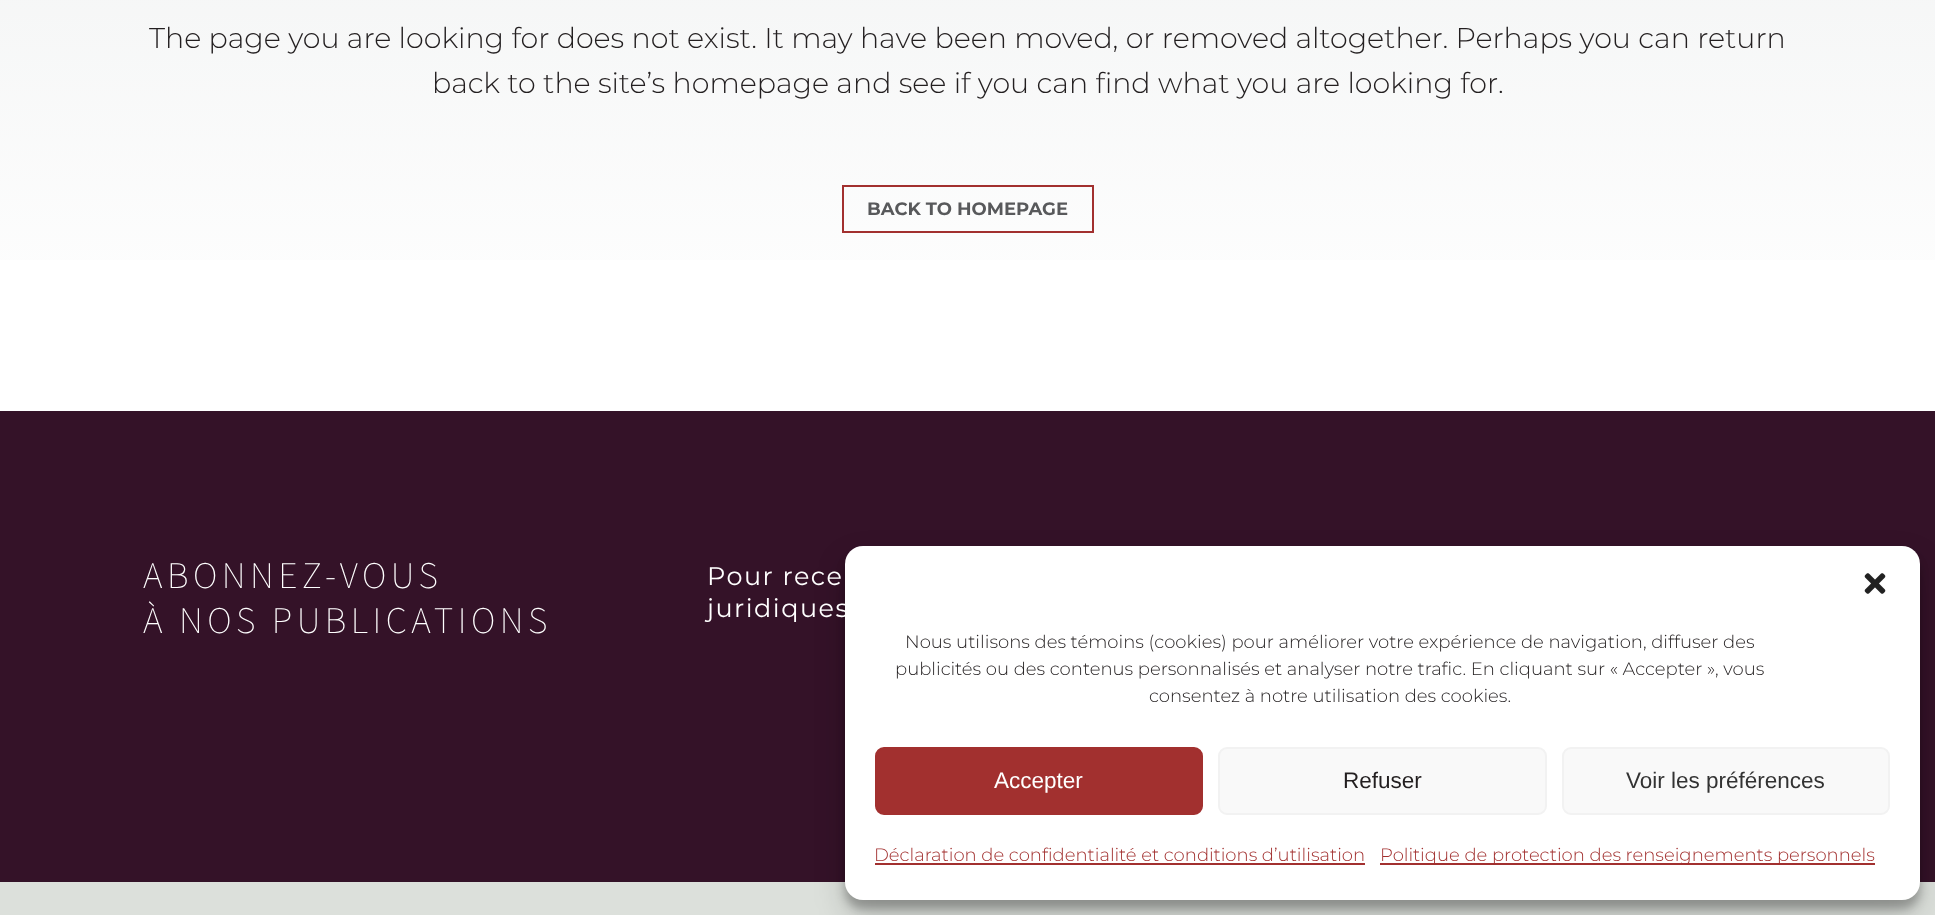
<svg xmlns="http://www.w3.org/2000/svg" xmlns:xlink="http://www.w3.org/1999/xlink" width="1935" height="915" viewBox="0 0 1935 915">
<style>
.cls-1{font:300 28.5px Montserrat;fill:#231f20}
.cls-2{font:bold 18px Montserrat;fill:#58595b}
.cls-3{font:200 37.5px Assistant;letter-spacing:4.5px;fill:#ffffff}
.cls-4{font:25.5px Montserrat;letter-spacing:1.5px;fill:#ffffff}
.cls-5{font:300 18px Montserrat;fill:#231f20}
.cls-6{font:22.5px Liberation Sans;fill:#ffffff}
.cls-7{font:22.5px Liberation Sans;fill:#231f20}
.cls-8{font:22.5px Liberation Sans;fill:#333333}
.cls-9{font:300 18px Montserrat;fill:#a2302f}
</style>
<defs>
<linearGradient id="g1" gradientUnits="userSpaceOnUse" x1="968" y1="-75" x2="968" y2="359"><stop offset="0" stop-color="#f4f5f5"/><stop offset="1" stop-color="#ffffff"/></linearGradient>
</defs>
<rect width="100%" height="100%" fill="#ffffff"/>
<rect fill="url(#g1)" x="0" y="0" width="1935" height="260"/>
<rect fill="none" stroke="#a2302f" stroke-width="2" x="843" y="186" width="250" height="46"/>
<rect fill="#341228" x="0" y="411" width="1935" height="471"/>
<rect fill="#dce0db" x="0" y="882" width="1935" height="33"/>
<rect fill="#000000" fill-opacity="0.23" filter="blur(4.5px)" x="845" y="555" width="1075" height="354" rx="18"/>
<rect fill="#000000" fill-opacity="0.19" filter="blur(15px)" x="845" y="561" width="1075" height="354" rx="18"/>
<rect fill="#ffffff" x="845" y="546" width="1075" height="354" rx="18"/>
<image xlink:href="image0.png" x="1864" y="573" width="22" height="21"/>
<rect fill="#a2302f" stroke="#a2302f" stroke-width="2" x="876" y="748" width="326" height="66" rx="8"/>
<rect fill="#f9f9f9" stroke="#f2f2f2" stroke-width="2" x="1219" y="748" width="327" height="66" rx="8"/>
<rect fill="#f9f9f9" stroke="#f2f2f2" stroke-width="2" x="1563" y="748" width="326" height="66" rx="8"/>
<rect fill="#a2302f" x="875" y="863" width="490" height="2"/>
<rect fill="#a2302f" x="1380" y="863" width="495" height="2"/>
<text class="cls-1" x="149" y="48">The page you are looking for does not exist. It may have been moved, or removed altogether. Perhaps you can return</text>
<text class="cls-1" x="432" y="93">back to the site’s homepage and see if you can find what you are looking for.</text>
<text class="cls-2" x="867" y="215">BACK TO HOMEPAGE</text>
<text class="cls-3"><tspan x="143" y="588">ABONNEZ-VOUS</tspan><tspan x="143" y="633">À NOS PUBLICATIONS</tspan></text>
<text class="cls-4"><tspan x="707" y="585">Pour rece</tspan><tspan x="707" y="617">juridiques</tspan></text>
<text class="cls-5" x="905" y="648">Nous utilisons des témoins (cookies) pour améliorer votre expérience de navigation, diffuser des</text>
<text class="cls-5" x="895" y="675">publicités ou des contenus personnalisés et analyser notre trafic. En cliquant sur « Accepter », vous</text>
<text class="cls-5" x="1149" y="702">consentez à notre utilisation des cookies.</text>
<text class="cls-6" x="994" y="788">Accepter</text>
<text class="cls-7" x="1343" y="788">Refuser</text>
<text class="cls-8" x="1626" y="788">Voir les préférences</text>
<text class="cls-9" x="874" y="861">Déclaration de confidentialité et conditions d’utilisation</text>
<text class="cls-9" x="1380" y="861">Politique de protection des renseignements personnels</text>
</svg>
